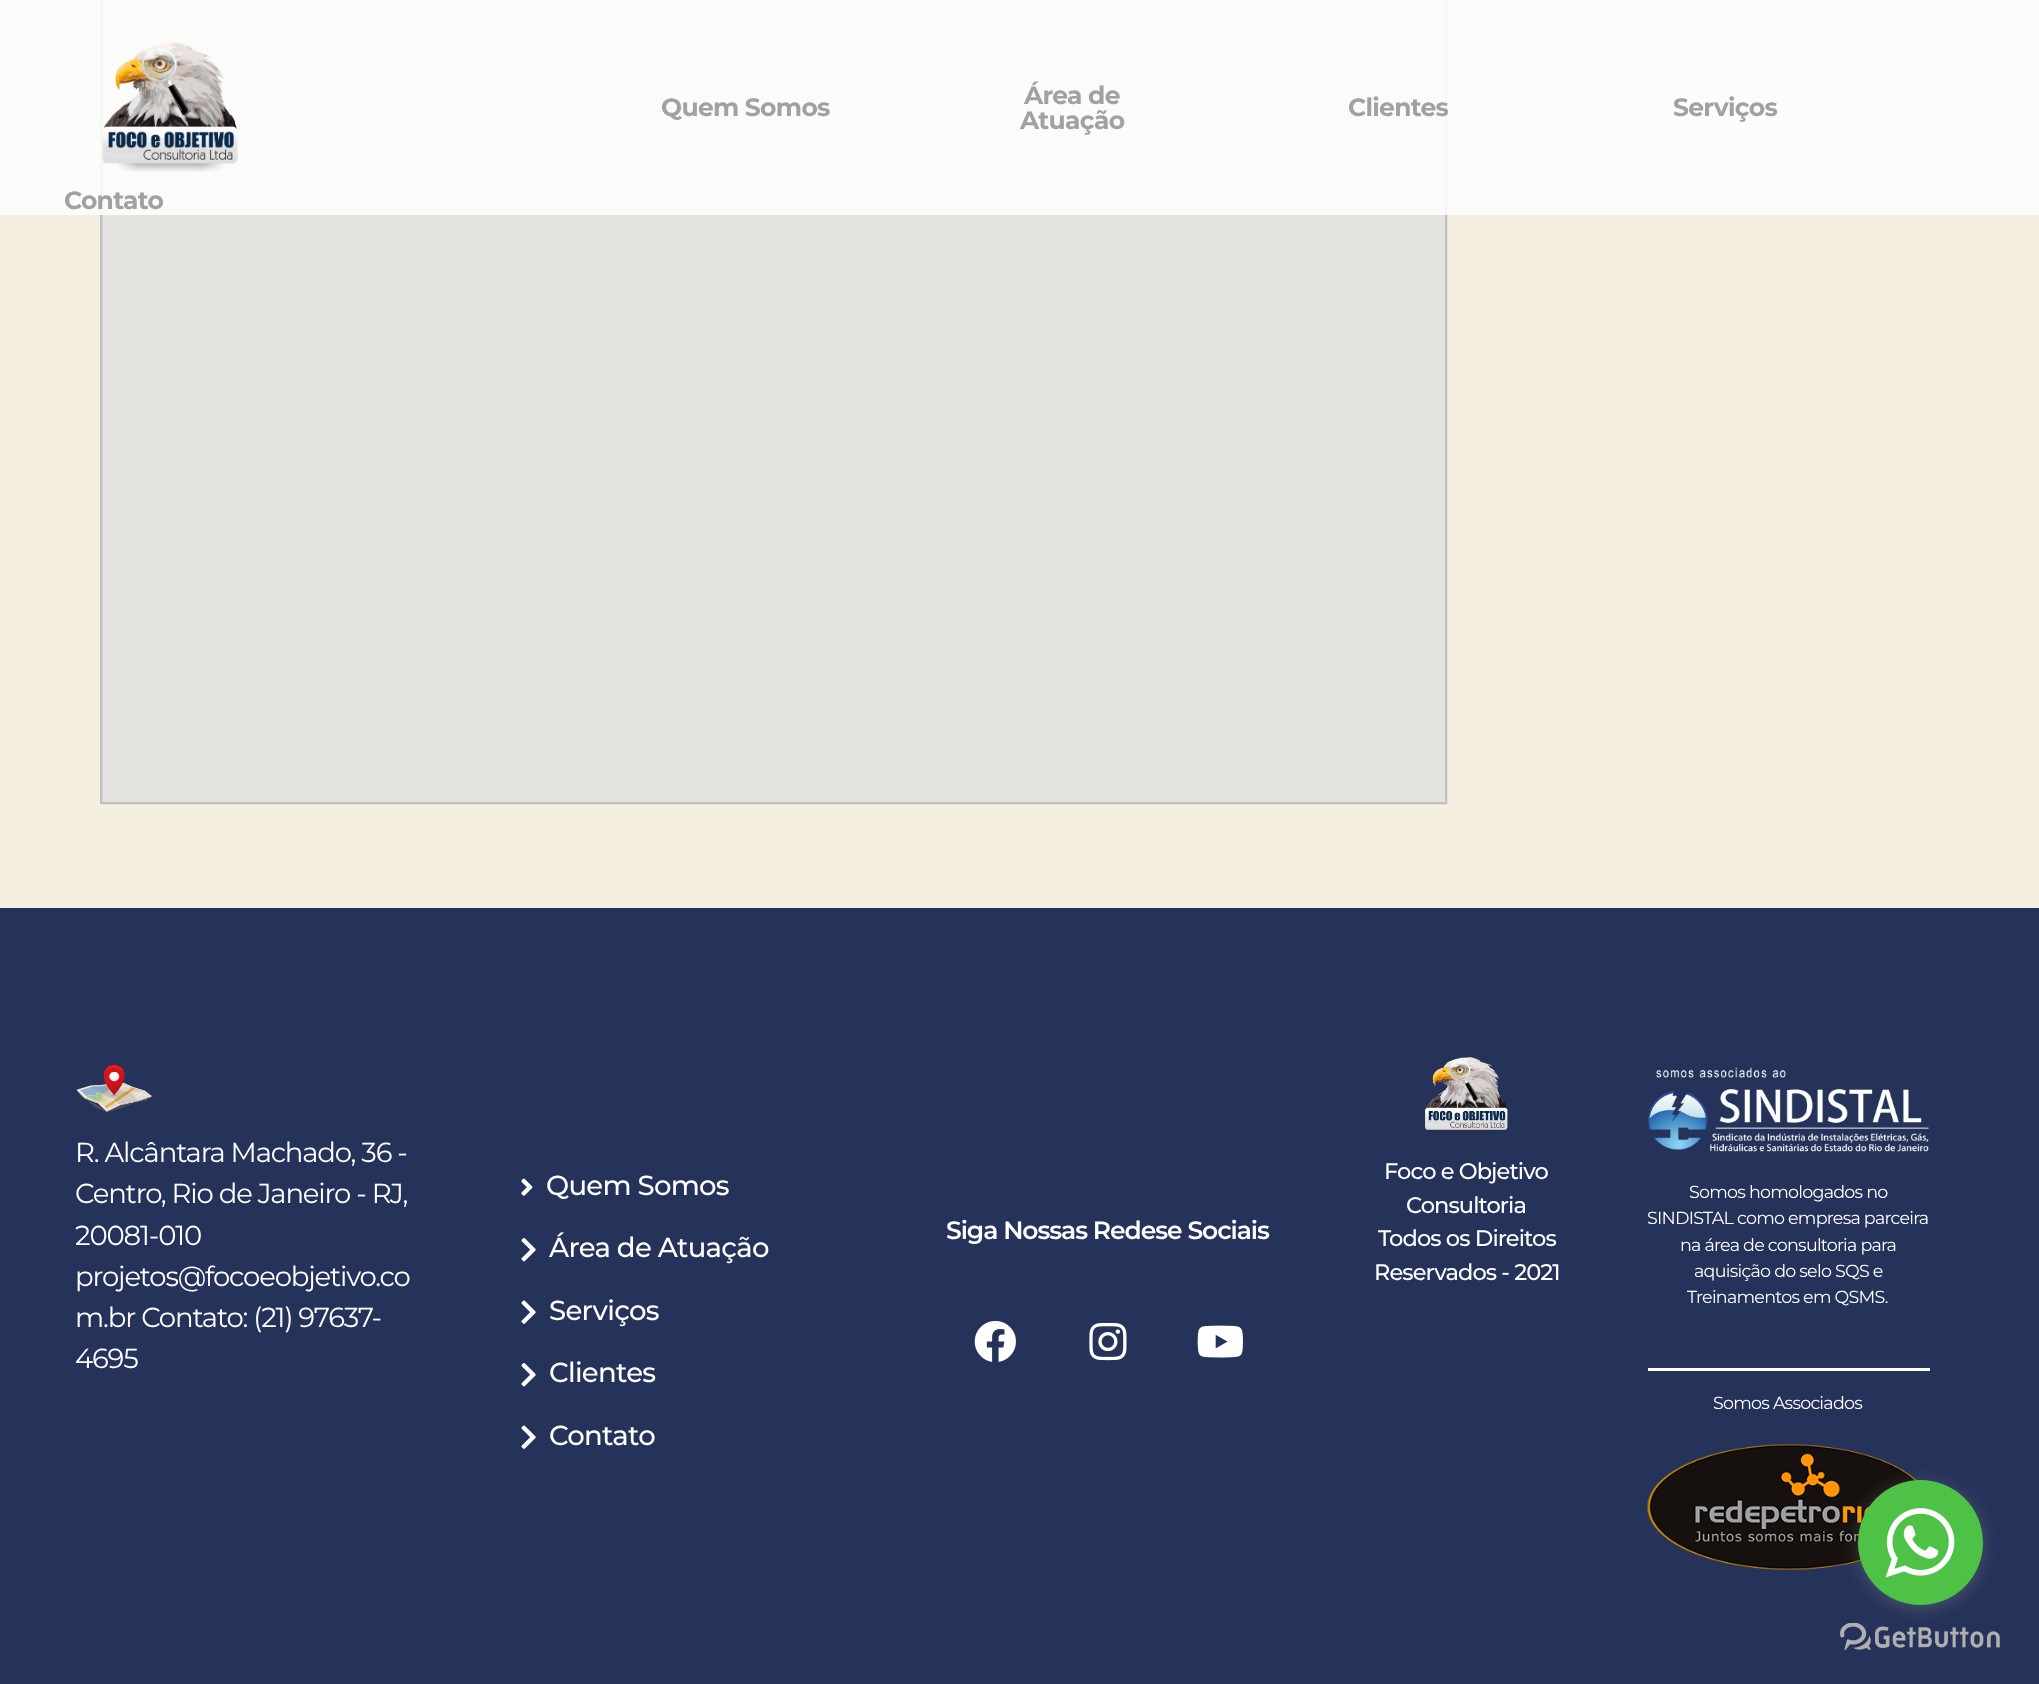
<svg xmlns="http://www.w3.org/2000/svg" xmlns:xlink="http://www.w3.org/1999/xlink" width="2039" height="1684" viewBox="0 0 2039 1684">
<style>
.cls-1{font:bold 25px Montserrat;letter-spacing:-0.7px;fill:#a1a1a1}
.cls-2{font:27.5px Montserrat;letter-spacing:-1.15px;fill:#ffffff}
.cls-3{font:500 27.5px Montserrat;letter-spacing:-0.7px;fill:#ffffff}
.cls-4{font:600 25px Montserrat;letter-spacing:-1.05px;fill:#ffffff}
.cls-5{font:500 22.5px Montserrat;letter-spacing:-0.9px;fill:#ffffff}
.cls-6{font:17.5px Montserrat;letter-spacing:-0.75px;fill:#ffffff}
</style>
<rect width="100%" height="100%" fill="#f5efe0"/>
<image xlink:href="image0.png" x="100" y="0" width="1348" height="805"/>
<rect fill="#fdfdfd" fill-opacity="0.9" x="0" y="0" width="2039" height="215"/>
<image xlink:href="image1.png" x="102" y="42" width="136" height="130"/>
<rect fill="#25325a" x="0" y="908" width="2039" height="776"/>
<image xlink:href="image2.png" x="76" y="1064" width="76" height="48"/>
<image xlink:href="image3.png" x="521" y="1178" width="12" height="18"/>
<image xlink:href="image4.png" x="521" y="1238" width="15" height="24"/>
<image xlink:href="image5.png" x="521" y="1300" width="15" height="24"/>
<image xlink:href="image4.png" x="521" y="1363" width="15" height="24"/>
<image xlink:href="image5.png" x="521" y="1425" width="15" height="24"/>
<image xlink:href="image6.png" x="974" y="1321" width="42" height="41"/>
<image xlink:href="image7.png" x="1089" y="1323" width="38" height="38"/>
<image xlink:href="image8.png" x="1197" y="1325" width="46" height="33"/>
<image xlink:href="image9.png" x="1425" y="1057" width="83" height="77"/>
<image xlink:href="image10.png" x="1648" y="1067" width="281" height="85"/>
<rect fill="#ffffff" x="1648" y="1368" width="282" height="3"/>
<image xlink:href="image11.png" x="1647" y="1444" width="271" height="126"/>
<image xlink:href="image13.png" x="1840" y="1623" width="160" height="27"/>
<rect fill="#888888" fill-opacity="0.4" filter="blur(9px)" x="1858" y="1483" width="125" height="125" rx="62.5"/>
<circle fill="#4dc247" cx="1920.5" cy="1542.5" r="62.5"/>
<image xlink:href="image12.png" x="1885" y="1508" width="70" height="70"/>
<text class="cls-1" x="661" y="116">Quem Somos</text>
<text class="cls-1" x="1024" y="104">Área de</text>
<text class="cls-1" x="1020" y="129">Atuação</text>
<text class="cls-1" x="1348" y="116">Clientes</text>
<text class="cls-1" x="1673" y="116">Serviços</text>
<text class="cls-1" x="64" y="209">Contato</text>
<text class="cls-2"><tspan x="75" y="1162">R. Alcântara Machado, 36 -</tspan><tspan x="75" y="1203">Centro, Rio de Janeiro - RJ,</tspan><tspan x="75" y="1245">20081-010</tspan><tspan x="75" y="1286">projetos@focoeobjetivo.co</tspan><tspan x="75" y="1327">m.br Contato: (21) 97637-</tspan><tspan x="75" y="1368">4695</tspan></text>
<text class="cls-3" x="546" y="1195">Quem Somos</text>
<text class="cls-3" x="549" y="1257">Área de Atuação</text>
<text class="cls-3" x="549" y="1320">Serviços</text>
<text class="cls-3" x="549" y="1382">Clientes</text>
<text class="cls-3" x="549" y="1445">Contato</text>
<text class="cls-4" x="946" y="1239">Siga Nossas Redese Sociais</text>
<text class="cls-5" x="1384" y="1179">Foco e Objetivo</text>
<text class="cls-5" x="1406" y="1213">Consultoria</text>
<text class="cls-5" x="1378" y="1246">Todos os Direitos</text>
<text class="cls-5" x="1374" y="1280">Reservados - 2021</text>
<text class="cls-6" x="1689" y="1198">Somos homologados no</text>
<text class="cls-6" x="1647" y="1224">SINDISTAL como empresa parceira</text>
<text class="cls-6" x="1680" y="1251">na área de consultoria para</text>
<text class="cls-6" x="1694" y="1277">aquisição do selo SQS e</text>
<text class="cls-6" x="1687" y="1303">Treinamentos em QSMS.</text>
<text class="cls-6" x="1713" y="1409">Somos Associados</text>
</svg>
